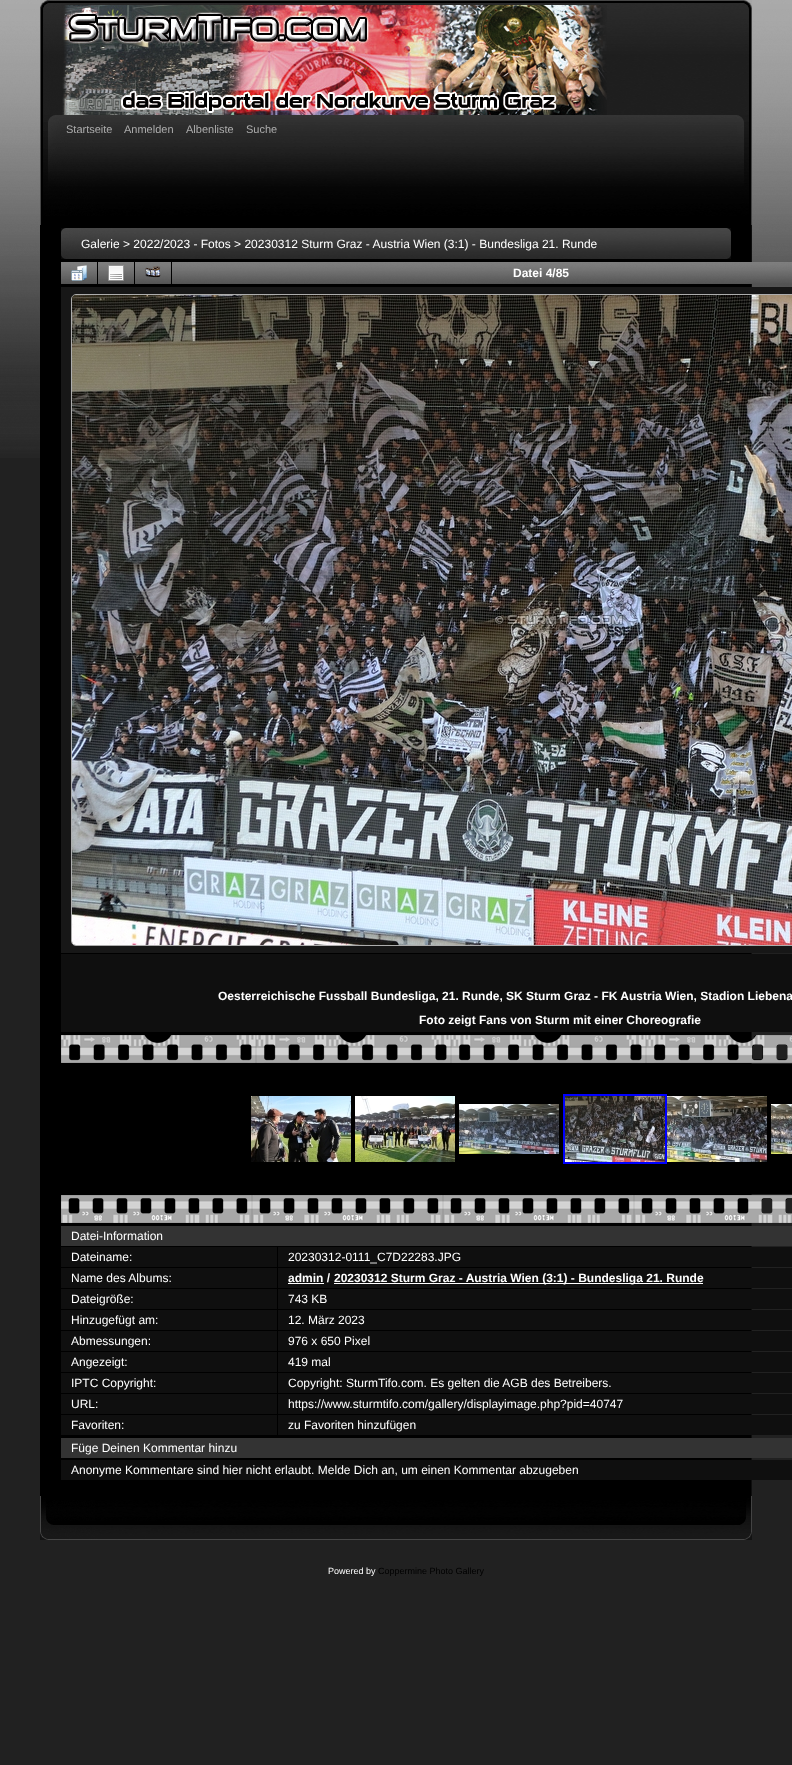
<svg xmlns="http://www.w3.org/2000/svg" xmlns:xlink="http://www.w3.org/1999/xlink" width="792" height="1765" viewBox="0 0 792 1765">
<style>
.cls-1{font:11px Liberation Sans;fill:#adadad}
.cls-2{font:12px Liberation Sans;fill:#ffffff}
.cls-3{font:bold 12px Liberation Sans;fill:#ffffff}
.cls-4{font:9px Liberation Sans;fill:#ffffff}
.cls-5{font:9px Liberation Sans;fill:#000000}
</style>
<rect width="100%" height="100%" fill="#212121"/>
<image xlink:href="image0.png" x="0" y="0" width="792" height="458"/>
<image xlink:href="image1.png" x="40" y="0" width="704" height="115"/>
<image xlink:href="image2.png" x="744" y="0" width="8" height="115"/>
<image xlink:href="image3.png" x="62" y="5" width="545" height="110"/>
<image xlink:href="image4.png" x="40" y="115" width="697" height="110"/>
<image xlink:href="image5.png" x="737" y="115" width="15" height="110"/>
<rect fill="#000000" x="40" y="225" width="711" height="1271"/>
<rect fill="#0e0e0e" x="751" y="225" width="1" height="1271"/>
<image xlink:href="image6.png" x="61" y="228" width="666" height="31"/>
<image xlink:href="image7.png" x="727" y="228" width="4" height="31"/>
<image xlink:href="image8.png" x="61" y="262" width="36" height="22"/>
<image xlink:href="image9.png" x="71" y="265" width="16" height="16"/>
<image xlink:href="image8.png" x="98" y="262" width="36" height="22"/>
<image xlink:href="image10.png" x="108" y="265" width="16" height="16"/>
<image xlink:href="image8.png" x="135" y="262" width="36" height="22"/>
<image xlink:href="image11.png" x="145" y="266" width="16" height="12"/>
<image xlink:href="image12.png" x="172" y="262" width="620" height="22"/>
<rect fill="#171717" x="61" y="287" width="731" height="666"/>
<rect fill="none" stroke="#adadad" x="71.5" y="294.5" width="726" height="651" rx="4.5"/>
<image xlink:href="image13.png" x="72" y="295" width="720" height="650"/>
<rect fill="#0f0f0f" x="61" y="954" width="731" height="78"/>
<image xlink:href="image14.png" x="61" y="1035" width="731" height="28"/>
<rect fill="#000000" x="751" y="1064" width="41" height="130"/>
<image xlink:href="image15.png" x="251" y="1096" width="100" height="66"/>
<image xlink:href="image16.png" x="355" y="1096" width="100" height="66"/>
<image xlink:href="image17.png" x="459" y="1104" width="100" height="50"/>
<rect fill="none" stroke="#0000ff" stroke-width="2" x="564" y="1095" width="102" height="68"/>
<image xlink:href="image18.png" x="565" y="1096" width="100" height="66"/>
<image xlink:href="image19.png" x="667" y="1096" width="100" height="66"/>
<image xlink:href="image20.png" x="771" y="1104" width="21" height="50"/>
<image xlink:href="image21.png" x="61" y="1195" width="731" height="28"/>
<rect fill="#333333" x="61" y="1226" width="731" height="20"/>
<rect fill="#0f0f0f" x="61" y="1247" width="216" height="20"/>
<rect fill="#0f0f0f" x="278" y="1247" width="514" height="20"/>
<rect fill="#0f0f0f" x="61" y="1268" width="216" height="20"/>
<rect fill="#0f0f0f" x="278" y="1268" width="514" height="20"/>
<rect fill="#ffffff" x="288" y="1283" width="36" height="1"/>
<rect fill="#ffffff" x="334" y="1283" width="369" height="1"/>
<rect fill="#0f0f0f" x="61" y="1289" width="216" height="20"/>
<rect fill="#0f0f0f" x="278" y="1289" width="514" height="20"/>
<rect fill="#0f0f0f" x="61" y="1310" width="216" height="20"/>
<rect fill="#0f0f0f" x="278" y="1310" width="514" height="20"/>
<rect fill="#0f0f0f" x="61" y="1331" width="216" height="20"/>
<rect fill="#0f0f0f" x="278" y="1331" width="514" height="20"/>
<rect fill="#0f0f0f" x="61" y="1352" width="216" height="20"/>
<rect fill="#0f0f0f" x="278" y="1352" width="514" height="20"/>
<rect fill="#0f0f0f" x="61" y="1373" width="216" height="20"/>
<rect fill="#0f0f0f" x="278" y="1373" width="514" height="20"/>
<rect fill="#0f0f0f" x="61" y="1394" width="216" height="20"/>
<rect fill="#0f0f0f" x="278" y="1394" width="514" height="20"/>
<rect fill="#0f0f0f" x="61" y="1415" width="216" height="20"/>
<rect fill="#0f0f0f" x="278" y="1415" width="514" height="20"/>
<rect fill="#333333" x="61" y="1438" width="731" height="20"/>
<rect fill="#0f0f0f" x="61" y="1460" width="731" height="20"/>
<image xlink:href="image22.png" x="40" y="1496" width="700" height="44"/>
<image xlink:href="image23.png" x="740" y="1496" width="12" height="44"/>
<text class="cls-1" x="66" y="133">Startseite</text>
<text class="cls-1" x="124" y="133">Anmelden</text>
<text class="cls-1" x="186" y="133">Albenliste</text>
<text class="cls-1" x="246" y="133">Suche</text>
<text class="cls-2" x="81" y="248">Galerie &gt; 2022/2023 - Fotos &gt; 20230312 Sturm Graz - Austria Wien (3:1) - Bundesliga 21. Runde</text>
<text class="cls-3" x="513" y="277">Datei 4/85</text>
<text class="cls-3" x="218" y="1000">Oesterreichische Fussball Bundesliga, 21. Runde, SK Sturm Graz - FK Austria Wien, Stadion Liebena</text>
<text class="cls-3" x="419" y="1024">Foto zeigt Fans von Sturm mit einer Choreografie</text>
<text class="cls-2"><tspan x="71" y="1240">Datei-Information</tspan><tspan x="71" y="1261">Dateiname:</tspan></text>
<text class="cls-2" x="288" y="1261">20230312-0111_C7D22283.JPG</text>
<text class="cls-2" x="71" y="1282">Name des Albums:</text>
<text class="cls-3" x="288" y="1282">admin /</text>
<text class="cls-3" x="334" y="1282">20230312 Sturm Graz - Austria Wien (3:1) - Bundesliga 21. Runde</text>
<text class="cls-2" x="71" y="1303">Dateigröße:</text>
<text class="cls-2" x="288" y="1303">743 KB</text>
<text class="cls-2" x="71" y="1324">Hinzugefügt am:</text>
<text class="cls-2" x="288" y="1324">12. März 2023</text>
<text class="cls-2" x="71" y="1345">Abmessungen:</text>
<text class="cls-2" x="288" y="1345">976 x 650 Pixel</text>
<text class="cls-2" x="71" y="1366">Angezeigt:</text>
<text class="cls-2" x="288" y="1366">419 mal</text>
<text class="cls-2" x="71" y="1387">IPTC Copyright:</text>
<text class="cls-2" x="288" y="1387">Copyright: SturmTifo.com. Es gelten die AGB des Betreibers.</text>
<text class="cls-2" x="71" y="1408">URL:</text>
<text class="cls-2" x="288" y="1408">https://www.sturmtifo.com/gallery/displayimage.php?pid=40747</text>
<text class="cls-2" x="71" y="1429">Favoriten:</text>
<text class="cls-2" x="288" y="1429">zu Favoriten hinzufügen</text>
<text class="cls-2"><tspan x="71" y="1452">Füge Deinen Kommentar hinzu</tspan><tspan x="71" y="1474">Anonyme Kommentare sind hier nicht erlaubt. Melde Dich an, um einen Kommentar abzugeben</tspan></text>
<text class="cls-4" x="328" y="1574">Powered by</text>
<text class="cls-5" x="378" y="1574">Coppermine Photo Gallery</text>
</svg>
